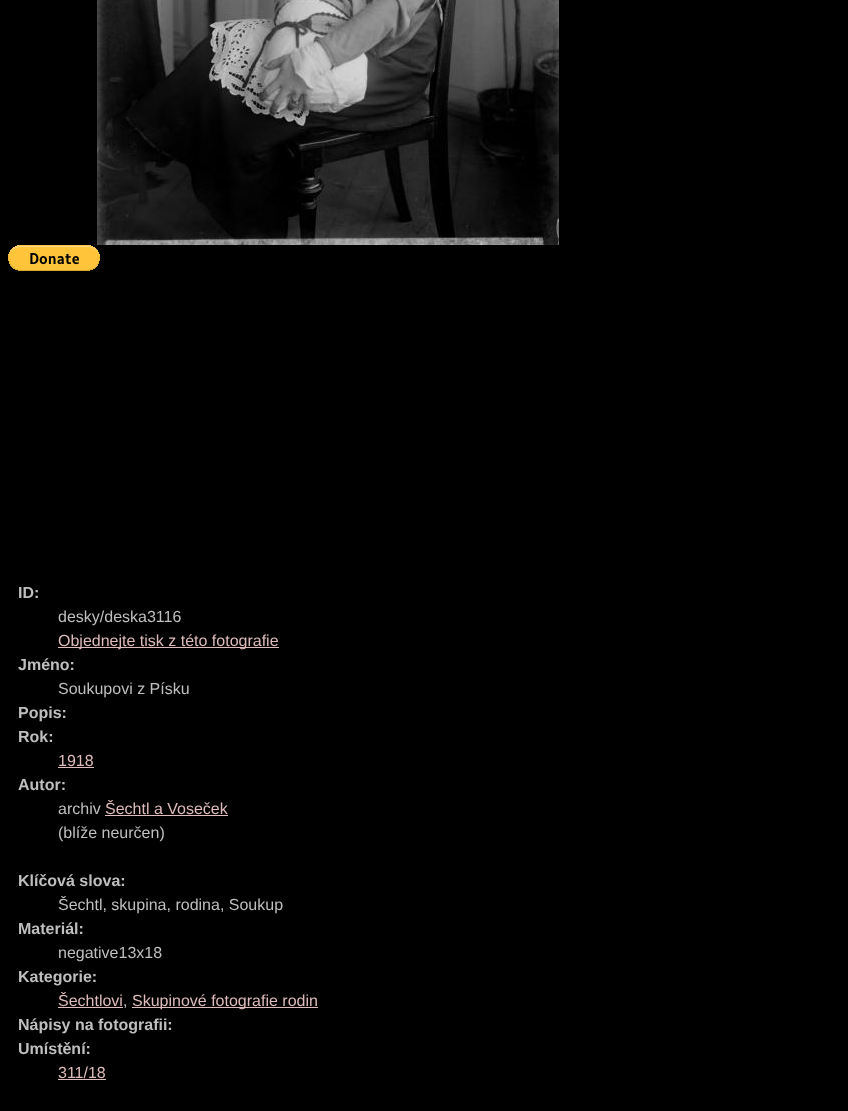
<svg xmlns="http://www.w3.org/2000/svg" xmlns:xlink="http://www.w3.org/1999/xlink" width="848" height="1111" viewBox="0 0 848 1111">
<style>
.cls-1{font:bold 16px Liberation Sans;fill:#bfbfbf}
.cls-2{font:16px Liberation Sans;fill:#bfbfbf}
.cls-3{font:16px Liberation Sans;fill:#dfbbbb}
</style>
<rect width="100%" height="100%" fill="#000000"/>
<image xlink:href="image0.png" x="97" y="0" width="462" height="245"/>
<image xlink:href="image1.png" x="8" y="245" width="92" height="26"/>
<rect fill="#dfbbbb" x="58" y="647" width="221" height="1"/>
<rect fill="#dfbbbb" x="58" y="767" width="36" height="1"/>
<rect fill="#dfbbbb" x="105" y="815" width="123" height="1"/>
<rect fill="#dfbbbb" x="58" y="1007" width="65" height="1"/>
<rect fill="#dfbbbb" x="132" y="1007" width="186" height="1"/>
<rect fill="#dfbbbb" x="58" y="1079" width="48" height="1"/>
<text class="cls-1" x="18" y="598">ID:</text>
<text class="cls-2" x="58" y="622">desky/deska3116</text>
<text class="cls-3" x="58" y="646">Objednejte tisk z této fotografie</text>
<text class="cls-1" x="18" y="670">Jméno:</text>
<text class="cls-2" x="58" y="694">Soukupovi z Písku</text>
<text class="cls-1"><tspan x="18" y="718">Popis:</tspan><tspan x="18" y="742">Rok:</tspan></text>
<text class="cls-3" x="58" y="766">1918</text>
<text class="cls-1" x="18" y="790">Autor:</text>
<text class="cls-2" x="58" y="814">archiv</text>
<text class="cls-3" x="105" y="814">Šechtl a Voseček</text>
<text class="cls-2" x="58" y="838">(blíže neurčen)</text>
<text class="cls-1" x="18" y="886">Klíčová slova:</text>
<text class="cls-2" x="58" y="910">Šechtl, skupina, rodina, Soukup</text>
<text class="cls-1" x="18" y="934">Materiál:</text>
<text class="cls-2" x="58" y="958">negative13x18</text>
<text class="cls-1" x="18" y="982">Kategorie:</text>
<text class="cls-3" x="58" y="1006">Šechtlovi</text>
<text class="cls-2" x="123" y="1006">,</text>
<text class="cls-3" x="132" y="1006">Skupinové fotografie rodin</text>
<text class="cls-1"><tspan x="18" y="1030">Nápisy na fotografii:</tspan><tspan x="18" y="1054">Umístění:</tspan></text>
<text class="cls-3" x="58" y="1078">311/18</text>
</svg>
